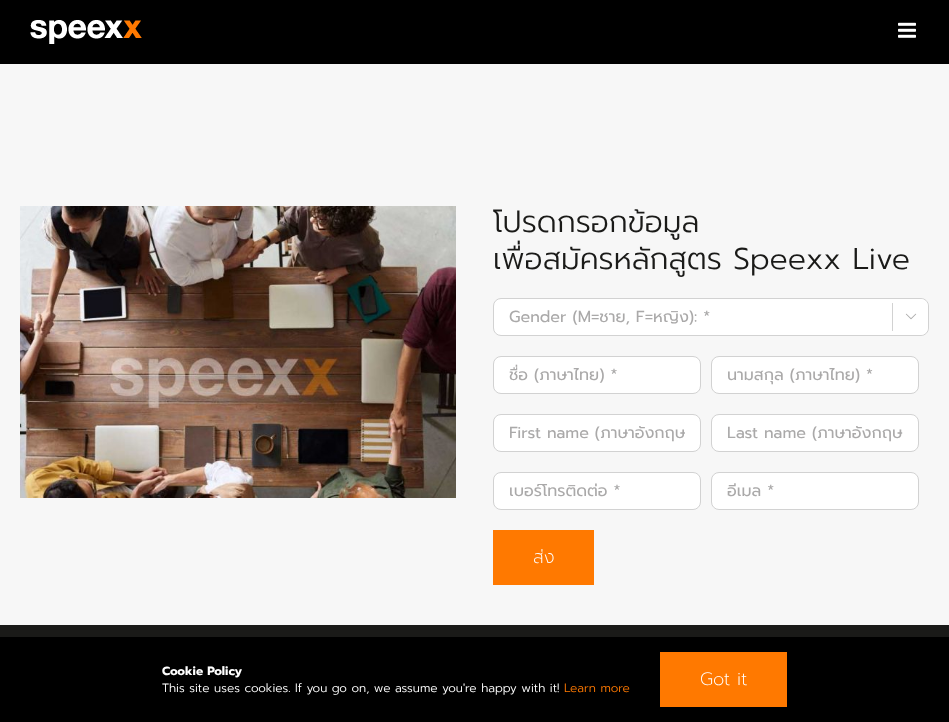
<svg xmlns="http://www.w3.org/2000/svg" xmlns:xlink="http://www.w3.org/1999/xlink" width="949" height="722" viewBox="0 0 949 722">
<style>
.cls-1{font:300 30px Prompt;fill:#1a1a18}
.cls-2{font:16px Prompt;fill:#aaa9a9}
.cls-3{font:200 18px Prompt;fill:#ffffff}
.cls-4{font:bold 12px Prompt;fill:#ffffff}
.cls-5{font:300 12px Prompt;fill:#ffffff}
.cls-6{font:300 12px Prompt;fill:#ff7900}
</style>
<defs>
<clipPath id="clip1"><rect x="509" y="363" width="176" height="24"/></clipPath>
<clipPath id="clip2"><rect x="727" y="479" width="176" height="24"/></clipPath>
</defs>
<rect width="100%" height="100%" fill="#f7f7f7"/>
<rect fill="#000000" x="0" y="0" width="949" height="64"/>
<image xlink:href="image0.png" x="30" y="20" width="112" height="24"/>
<image xlink:href="image1.png" x="898" y="22" width="18" height="16"/>
<image xlink:href="image2.png" x="20" y="206" width="436" height="292"/>
<rect fill="#ffffff" stroke="#d2d2d2" x="493.5" y="298.5" width="435" height="37" rx="7.5"/>
<rect fill="#ffffff" x="892" y="299" width="36" height="36" rx="8"/>
<rect fill="#d2d2d2" x="892" y="303" width="1" height="28"/>
<image xlink:href="image3.png" x="905" y="313" width="12" height="7"/>
<rect fill="#ffffff" stroke="#d2d2d2" x="493.5" y="356.5" width="207" height="37" rx="7.5"/>
<rect fill="#ffffff" stroke="#d2d2d2" x="711.5" y="356.5" width="207" height="37" rx="7.5"/>
<rect fill="#ffffff" stroke="#d2d2d2" x="493.5" y="414.5" width="207" height="37" rx="7.5"/>
<rect fill="#ffffff" stroke="#d2d2d2" x="711.5" y="414.5" width="207" height="37" rx="7.5"/>
<rect fill="#ffffff" stroke="#d2d2d2" x="493.5" y="472.5" width="207" height="37" rx="7.5"/>
<rect fill="#ffffff" stroke="#d2d2d2" x="711.5" y="472.5" width="207" height="37" rx="7.5"/>
<rect fill="#ff7900" x="493" y="530" width="101" height="55"/>
<rect fill="#1a1a18" x="0" y="625" width="949" height="12"/>
<rect fill="#000000" x="0" y="637" width="949" height="85"/>
<rect fill="#ff7900" x="660" y="652" width="127" height="55"/>
<text class="cls-1"><tspan x="493" y="232">โปรดกรอกข้อมูล</tspan><tspan x="493" y="269">เพื่อสมัครหลักสูตร Speexx Live</tspan></text>
<text class="cls-2" x="509" y="322">Gender (M=ชาย, F=หญิง): *</text>
<g clip-path="url(#clip1)">
<text class="cls-2" x="509" y="380">ชื่อ (ภาษาไทย) *</text>
</g>
<text class="cls-2" x="727" y="380">นามสกุล (ภาษาไทย) *</text>
<text class="cls-2" x="509" y="438">First name (ภาษาอังกฤษ</text>
<text class="cls-2" x="727" y="438">Last name (ภาษาอังกฤษ</text>
<text class="cls-2" x="509" y="496">เบอร์โทรติดต่อ *</text>
<g clip-path="url(#clip2)">
<text class="cls-2" x="727" y="496">อีเมล *</text>
</g>
<text class="cls-3" x="533" y="563">ส่ง</text>
<text class="cls-4" x="162" y="675">Cookie Policy</text>
<text class="cls-5" x="162" y="692">This site uses cookies. If you go on, we assume you're happy with it!</text>
<text class="cls-6" x="564" y="692">Learn more</text>
<text class="cls-3" x="700" y="685">Got it</text>
</svg>
